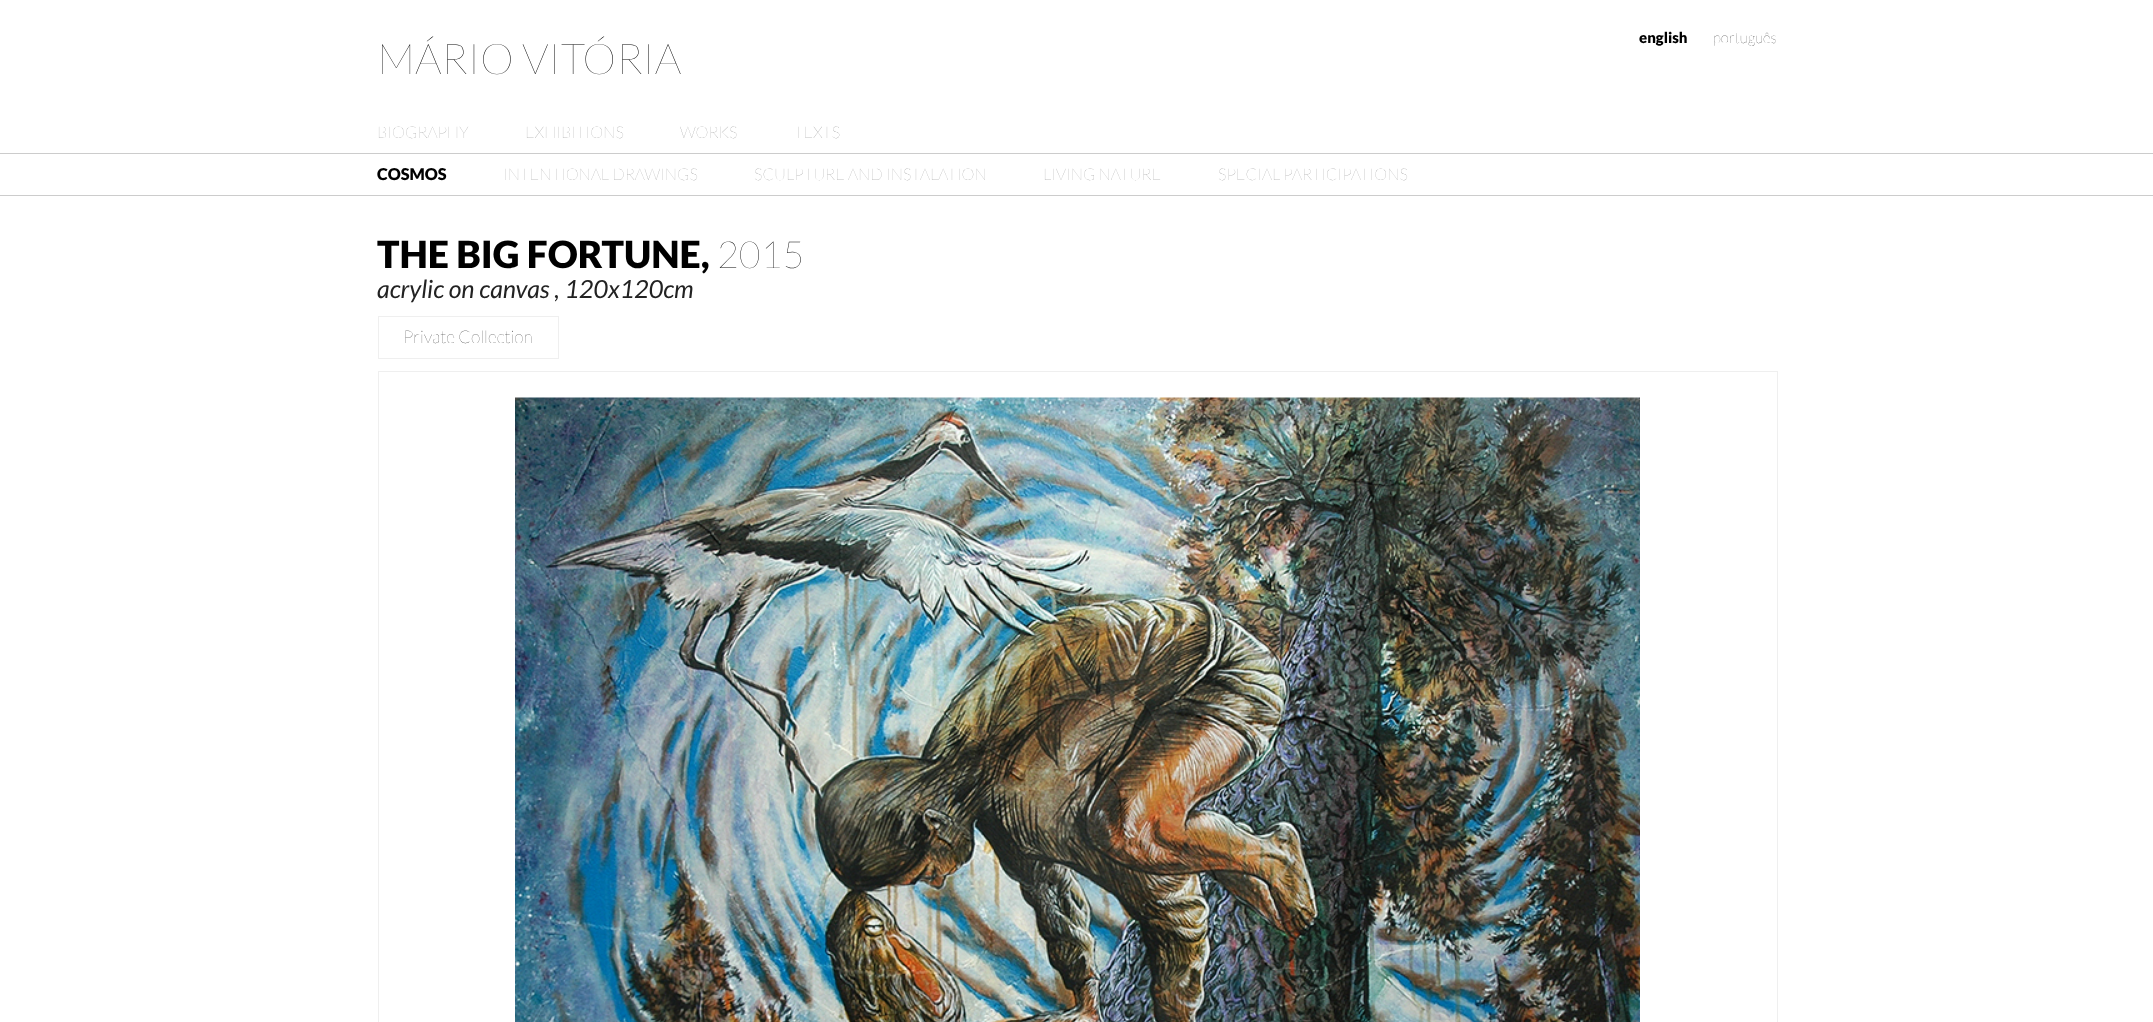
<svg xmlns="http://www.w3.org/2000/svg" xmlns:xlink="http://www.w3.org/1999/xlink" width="2153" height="1022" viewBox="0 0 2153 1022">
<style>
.cls-1{font:100 42.5px Lato;fill:#000000}
.cls-2{font:900 15px Lato;fill:#000000}
.cls-3{font:100 15px Lato;fill:#000000}
.cls-4{font:100 16.25px Lato;fill:#888888}
.cls-5{font:900 16.25px Lato;fill:#000000}
.cls-6{font:900 37.5px Lato;fill:#000000}
.cls-7{font:100 37.5px Lato;fill:#000000}
.cls-8{font:italic 25px Lato;fill:#222222}
.cls-9{font:100 17.5px Lato;fill:#000000}
</style>
<rect width="100%" height="100%" fill="#ffffff"/>
<rect fill="#cccccc" x="0" y="153" width="2153" height="1"/>
<rect fill="#cccccc" x="0" y="195" width="2153" height="1"/>
<rect fill="none" stroke="#efefef" x="378.5" y="316.5" width="180" height="42"/>
<rect fill="none" stroke="#efefef" x="378.5" y="371.5" width="1399" height="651"/>
<image xlink:href="image0.png" x="515" y="397" width="1125" height="625"/>
<text class="cls-1" x="377" y="74">MÁRIO VITÓRIA</text>
<text class="cls-2" x="1639" y="43">english</text>
<text class="cls-3" x="1713" y="43">português</text>
<text class="cls-4" x="377" y="138">BIOGRAPHY</text>
<text class="cls-4" x="525" y="138">EXHIBITIONS</text>
<text class="cls-4" x="680" y="138">WORKS</text>
<text class="cls-4" x="794" y="138">TEXTS</text>
<text class="cls-5" x="377" y="180">COSMOS</text>
<text class="cls-4" x="503" y="180">INTENTIONAL DRAWINGS</text>
<text class="cls-4" x="754" y="180">SCULPTURE AND INSTALATION</text>
<text class="cls-4" x="1043" y="180">LIVING NATURE</text>
<text class="cls-4" x="1218" y="180">SPECIAL PARTICIPATIONS</text>
<text class="cls-6" x="377" y="268">THE BIG FORTUNE,</text>
<text class="cls-7" x="717" y="268">2015</text>
<text class="cls-8" x="377" y="298">acrylic on canvas , 120x120cm</text>
<text class="cls-9" x="403" y="343">Private Collection</text>
</svg>
